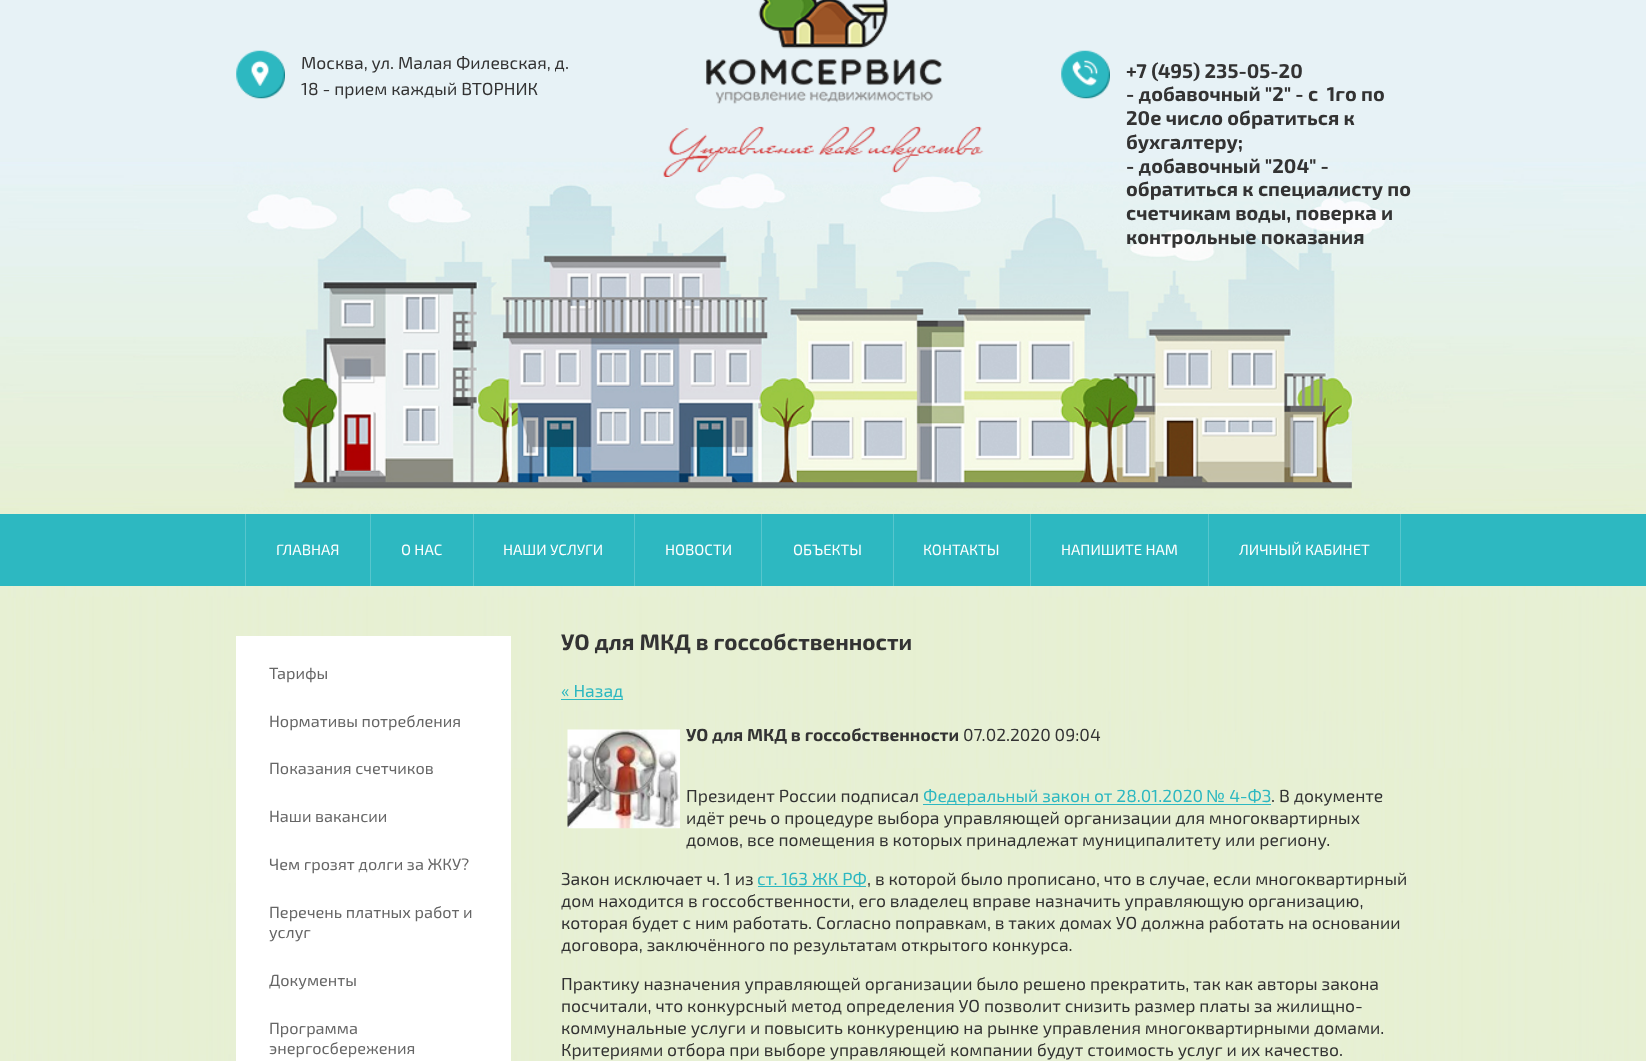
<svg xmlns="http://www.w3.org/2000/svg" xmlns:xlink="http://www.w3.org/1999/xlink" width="1646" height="1061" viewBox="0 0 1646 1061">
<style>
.cls-1{font:17.5px 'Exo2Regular';fill:#333333}
.cls-2{font:bold 20px 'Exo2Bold';fill:#333333}
.cls-3{font:15px 'Exo2Regular';fill:#ffffff}
.cls-4{font:16.25px 'Exo2Regular';fill:#666666}
.cls-5{font:bold 22.5px 'Exo2Bold';fill:#333333}
.cls-6{font:17.5px 'Exo2Regular';fill:#2db8c1}
.cls-7{font:bold 17.5px 'Exo2Bold';fill:#333333}
.cls-8{font:17.5px Liberation Sans;fill:#2db8c1}
</style>
<rect width="100%" height="100%" fill="#ffffff"/>
<image xlink:href="image0.png" x="0" y="507" width="1646" height="554"/>
<image xlink:href="image2.png" x="0" y="0" width="1646" height="507"/>
<image xlink:href="image1.png" x="0" y="162" width="1635" height="350"/>
<image xlink:href="image3.png" x="236" y="50" width="49" height="49"/>
<image xlink:href="image4.png" x="663" y="0" width="321" height="177"/>
<image xlink:href="image5.png" x="1061" y="50" width="49" height="49"/>
<rect fill="#2db8c1" x="0" y="514" width="1646" height="72"/>
<rect fill="#57c6cd" x="245" y="514" width="1" height="72"/>
<rect fill="#57c6cd" x="370" y="514" width="1" height="72"/>
<rect fill="#57c6cd" x="473" y="514" width="1" height="72"/>
<rect fill="#57c6cd" x="634" y="514" width="1" height="72"/>
<rect fill="#57c6cd" x="761" y="514" width="1" height="72"/>
<rect fill="#57c6cd" x="893" y="514" width="1" height="72"/>
<rect fill="#57c6cd" x="1030" y="514" width="1" height="72"/>
<rect fill="#57c6cd" x="1400" y="514" width="1" height="72"/>
<rect fill="#57c6cd" x="1208" y="514" width="1" height="72"/>
<rect fill="#ffffff" x="236" y="636" width="275" height="425"/>
<rect fill="#2db8c1" x="561" y="699" width="62" height="1"/>
<image xlink:href="image6.png" x="567" y="729" width="113" height="100"/>
<rect fill="#2db8c1" x="923" y="804" width="348" height="1"/>
<rect fill="#2db8c1" x="758" y="886" width="108" height="1"/>
<text class="cls-1"><tspan x="301" y="69">Москва, ул. Малая Филевская, д.</tspan><tspan x="301" y="95">18 - прием каждый ВТОРНИК</tspan></text>
<text class="cls-2" xml:space="preserve"><tspan x="1126" y="78">+7 (495) 235-05-20</tspan><tspan x="1126" y="101">- добавочный "2" - с  1го по</tspan><tspan x="1126" y="125">20е число обратиться к</tspan><tspan x="1126" y="149">бухгалтеру;</tspan><tspan x="1126" y="173">- добавочный "204" -</tspan><tspan x="1126" y="196">обратиться к специалисту по</tspan><tspan x="1126" y="220">счетчикам воды, поверка и</tspan><tspan x="1126" y="244">контрольные показания</tspan></text>
<text class="cls-3" x="276" y="555">ГЛАВНАЯ</text>
<text class="cls-3" x="401" y="555">О НАС</text>
<text class="cls-3" x="503" y="555">НАШИ УСЛУГИ</text>
<text class="cls-3" x="665" y="555">НОВОСТИ</text>
<text class="cls-3" x="793" y="555">ОБЪЕКТЫ</text>
<text class="cls-3" x="923" y="555">КОНТАКТЫ</text>
<text class="cls-3" x="1061" y="555">НАПИШИТЕ НАМ</text>
<text class="cls-3" x="1239" y="555">ЛИЧНЫЙ КАБИНЕТ</text>
<text class="cls-4" x="269" y="679">Тарифы</text>
<text class="cls-4" x="269" y="727">Нормативы потребления</text>
<text class="cls-4" x="269" y="774">Показания счетчиков</text>
<text class="cls-4" x="269" y="822">Наши вакансии</text>
<text class="cls-4" x="269" y="870">Чем грозят долги за ЖКУ?</text>
<text class="cls-4"><tspan x="269" y="918">Перечень платных работ и</tspan><tspan x="269" y="938">услуг</tspan></text>
<text class="cls-4" x="269" y="986">Документы</text>
<text class="cls-4"><tspan x="269" y="1034">Программа</tspan><tspan x="269" y="1054">энергосбережения</tspan></text>
<text class="cls-5" x="561" y="650">УО для МКД в госсобственности</text>
<text class="cls-6" x="561" y="697">« Назад</text>
<text class="cls-7" x="686" y="741">УО для МКД в госсобственности</text>
<text class="cls-1" x="963" y="741">07.02.2020 09:04</text>
<text class="cls-1" x="686" y="802">Президент России подписал</text>
<text class="cls-6" x="923" y="802">Федеральный закон от 28.01.2020</text>
<text class="cls-8" x="1206" y="802">№</text>
<text class="cls-6" x="1229" y="802">4-ФЗ</text>
<text class="cls-1" x="1271" y="802">. В документе</text>
<text class="cls-1"><tspan x="686" y="824">идёт речь о процедуре выбора управляющей организации для многоквартирных</tspan><tspan x="686" y="846">домов, все помещения в которых принадлежат муниципалитету или региону.</tspan></text>
<text class="cls-1" x="561" y="885">Закон исключает ч. 1 из</text>
<text class="cls-6" x="757" y="885">ст. 163 ЖК РФ</text>
<text class="cls-1" x="867" y="885">, в которой было прописано, что в случае, если многоквартирный</text>
<text class="cls-1"><tspan x="561" y="907">дом находится в госсобственности, его владелец вправе назначить управляющую организацию,</tspan><tspan x="561" y="929">которая будет с ним работать. Согласно поправкам, в таких домах УО должна работать на основании</tspan><tspan x="561" y="951">договора, заключённого по результатам открытого конкурса.</tspan></text>
<text class="cls-1"><tspan x="561" y="990">Практику назначения управляющей организации было решено прекратить, так как авторы закона</tspan><tspan x="561" y="1012">посчитали, что конкурсный метод определения УО позволит снизить размер платы за жилищно-</tspan><tspan x="561" y="1034">коммунальные услуги и повысить конкуренцию на рынке управления многоквартирными домами.</tspan><tspan x="561" y="1056">Критериями отбора при выборе управляющей компании будут стоимость услуг и их качество.</tspan></text>
</svg>
